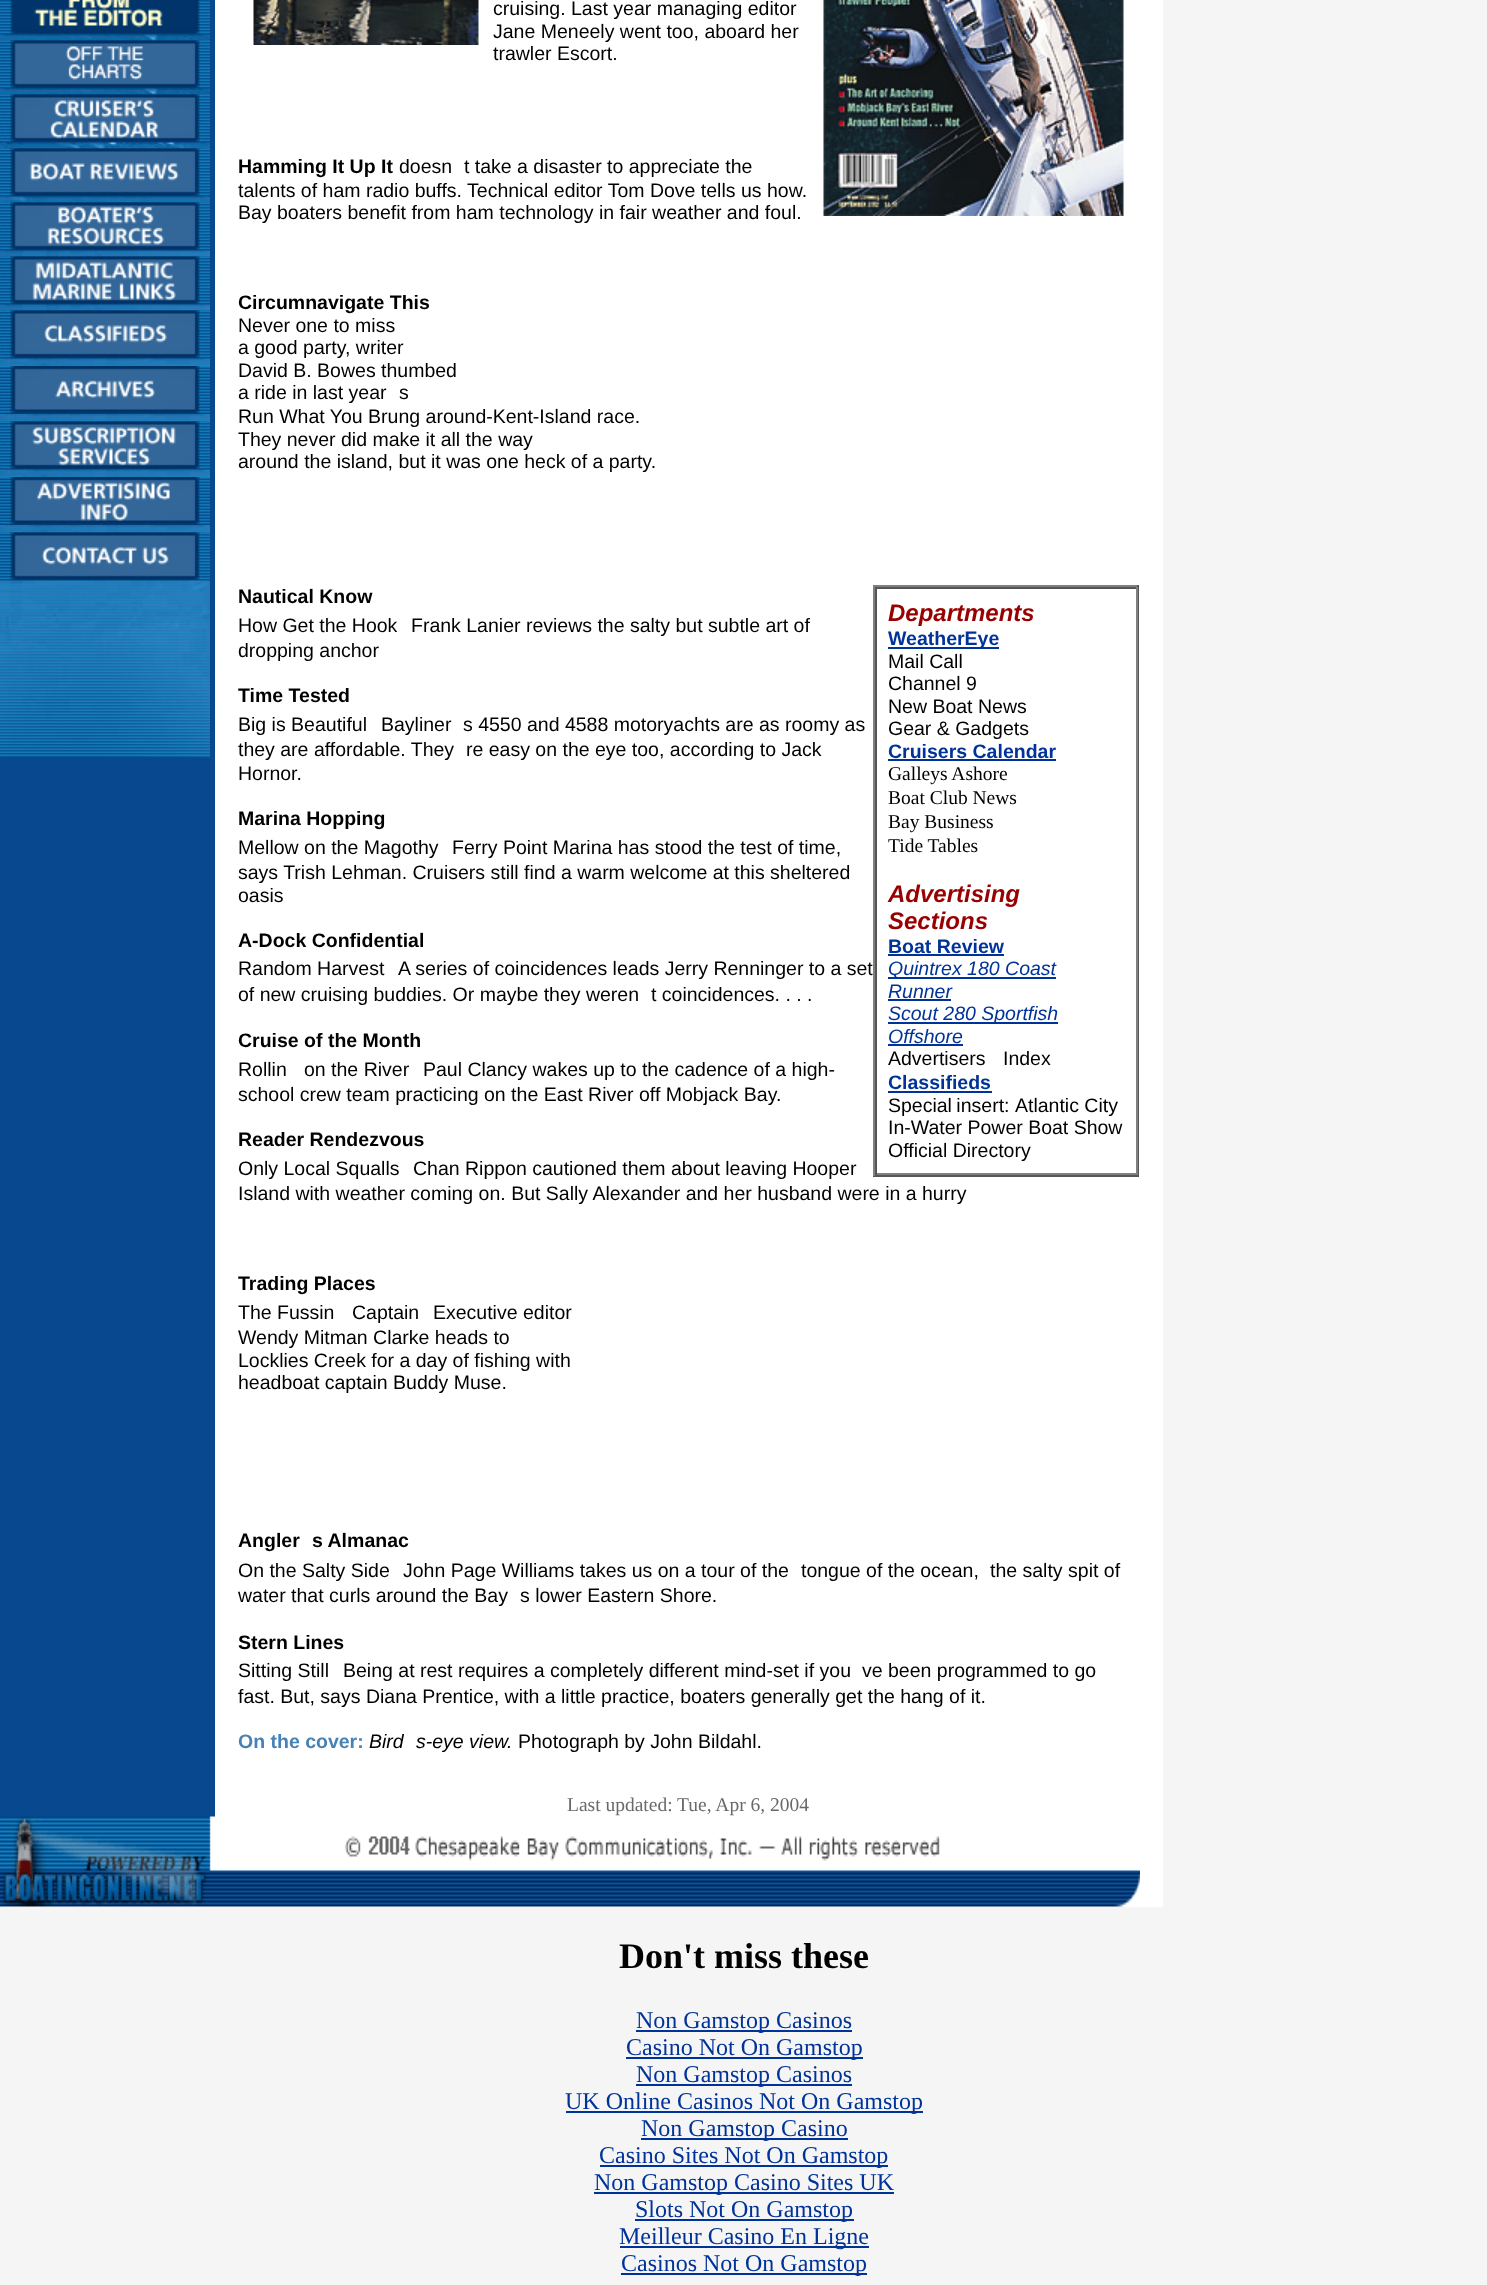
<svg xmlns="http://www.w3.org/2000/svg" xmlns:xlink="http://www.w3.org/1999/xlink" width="1487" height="2285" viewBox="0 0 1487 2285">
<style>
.cls-1{font:19.5px Liberation Sans;fill:#000000}
.cls-2{font:bold 19.5px Liberation Sans;fill:#000000}
.cls-3{font:italic bold 24px Liberation Sans;fill:#990000}
.cls-4{font:bold 19.5px Liberation Sans;fill:#003399}
.cls-5{font:19.5px Liberation Serif;fill:#000000}
.cls-6{font:italic 19.5px Liberation Sans;fill:#003399}
.cls-7{font:bold 19.5px Liberation Sans;fill:#4682b4}
.cls-8{font:italic 19.5px Liberation Sans;fill:#000000}
.cls-9{font:19.5px Liberation Serif;fill:#696969}
.cls-10{font:bold 36px Liberation Serif;fill:#000000}
.cls-11{font:24px Liberation Serif;fill:#003399}
</style>
<rect width="100%" height="100%" fill="#f5f5f5"/>
<rect fill="#07488e" x="0" y="0" width="215" height="1817"/>
<image xlink:href="image0.png" x="0" y="0" width="210" height="35"/>
<image xlink:href="image1.png" x="0" y="34" width="210" height="7"/>
<image xlink:href="image2.png" x="0" y="40" width="210" height="49"/>
<image xlink:href="image3.png" x="0" y="88" width="210" height="7"/>
<image xlink:href="image4.png" x="0" y="94" width="210" height="49"/>
<image xlink:href="image5.png" x="0" y="142" width="210" height="7"/>
<image xlink:href="image6.png" x="0" y="148" width="210" height="49"/>
<image xlink:href="image7.png" x="0" y="196" width="210" height="7"/>
<image xlink:href="image8.png" x="0" y="202" width="210" height="49"/>
<image xlink:href="image9.png" x="0" y="250" width="210" height="7"/>
<image xlink:href="image10.png" x="0" y="256" width="210" height="49"/>
<image xlink:href="image9.png" x="0" y="304" width="210" height="7"/>
<image xlink:href="image11.png" x="0" y="310" width="210" height="49"/>
<image xlink:href="image12.png" x="0" y="358" width="210" height="8"/>
<image xlink:href="image13.png" x="0" y="366" width="210" height="48"/>
<image xlink:href="image14.png" x="0" y="414" width="210" height="8"/>
<image xlink:href="image15.png" x="0" y="421" width="210" height="49"/>
<image xlink:href="image16.png" x="0" y="469" width="210" height="8"/>
<image xlink:href="image17.png" x="0" y="477" width="210" height="48"/>
<image xlink:href="image14.png" x="0" y="525" width="210" height="8"/>
<image xlink:href="image18.png" x="0" y="532" width="210" height="49"/>
<image xlink:href="image19.png" x="0" y="580" width="210" height="178"/>
<rect fill="#ffffff" x="215" y="0" width="948" height="1817"/>
<image xlink:href="image20.png" x="253" y="0" width="226" height="45"/>
<image xlink:href="image21.png" x="823" y="0" width="301" height="216"/>
<rect fill="#808080" x="873" y="585" width="266" height="2"/>
<rect fill="#555555" x="1137" y="585" width="2" height="591"/>
<rect fill="#555555" x="873" y="1175" width="266" height="2"/>
<rect fill="#808080" x="873" y="585" width="2" height="591"/>
<rect fill="#555555" x="875" y="587" width="262" height="2"/>
<rect fill="#808080" x="1136" y="587" width="2" height="588"/>
<rect fill="#808080" x="875" y="1173" width="262" height="2"/>
<rect fill="#555555" x="875" y="587" width="2" height="588"/>
<rect fill="#003399" x="888" y="647" width="111" height="2"/>
<rect fill="#003399" x="888" y="759" width="168" height="2"/>
<rect fill="#003399" x="888" y="954" width="116" height="2"/>
<rect fill="#003399" x="888" y="977" width="168" height="2"/>
<rect fill="#003399" x="888" y="999" width="63" height="2"/>
<rect fill="#003399" x="888" y="1022" width="170" height="2"/>
<rect fill="#003399" x="888" y="1044" width="75" height="2"/>
<rect fill="#003399" x="888" y="1091" width="104" height="2"/>
<rect fill="#ffffff" x="0" y="1817" width="1163" height="90"/>
<image xlink:href="image22.png" x="0" y="1816" width="1140" height="91"/>
<rect fill="#003399" x="636" y="2030" width="216" height="2"/>
<rect fill="#003399" x="626" y="2057" width="237" height="2"/>
<rect fill="#003399" x="636" y="2084" width="216" height="2"/>
<rect fill="#003399" x="566" y="2111" width="357" height="2"/>
<rect fill="#003399" x="641" y="2138" width="207" height="2"/>
<rect fill="#003399" x="600" y="2165" width="288" height="2"/>
<rect fill="#003399" x="594" y="2192" width="300" height="2"/>
<rect fill="#003399" x="635" y="2219" width="219" height="2"/>
<rect fill="#003399" x="620" y="2246" width="249" height="2"/>
<rect fill="#003399" x="621" y="2273" width="246" height="2"/>
<text class="cls-1"><tspan x="493" y="15">cruising. Last year managing editor</tspan><tspan x="493" y="38">Jane Meneely went too, aboard her</tspan><tspan x="493" y="60">trawler Escort.</tspan></text>
<text class="cls-2" x="238" y="173">Hamming It Up It</text>
<text class="cls-1" x="399" y="173">doesn</text>
<text class="cls-1" x="464" y="173">t take a disaster to appreciate the</text>
<text class="cls-1"><tspan x="238" y="197">talents of ham radio buffs. Technical editor Tom Dove tells us how.</tspan><tspan x="238" y="219">Bay boaters benefit from ham technology in fair weather and foul.</tspan></text>
<text class="cls-2" x="238" y="309">Circumnavigate This</text>
<text class="cls-1"><tspan x="238" y="332">Never one to miss</tspan><tspan x="238" y="354">a good party, writer</tspan><tspan x="238" y="377">David B. Bowes thumbed</tspan><tspan x="238" y="399">a ride in last year</tspan></text>
<text class="cls-1" x="399" y="399">s</text>
<text class="cls-1"><tspan x="238" y="423">Run What You Brung around-Kent-Island race.</tspan><tspan x="238" y="446">They never did make it all the way</tspan><tspan x="238" y="468">around the island, but it was one heck of a party.</tspan></text>
<text class="cls-2" x="238" y="603">Nautical Know</text>
<text class="cls-1" x="238" y="632">How Get the Hook</text>
<text class="cls-1" x="411" y="632">Frank Lanier reviews the salty but subtle art of</text>
<text class="cls-3" x="888" y="621">Departments</text>
<text class="cls-4" x="888" y="645">WeatherEye</text>
<text class="cls-1"><tspan x="888" y="668">Mail Call</tspan><tspan x="888" y="690">Channel 9</tspan><tspan x="888" y="713">New Boat News</tspan><tspan x="888" y="735">Gear &amp; Gadgets</tspan></text>
<text class="cls-4" x="888" y="758">Cruisers Calendar</text>
<text class="cls-5"><tspan x="888" y="780">Galleys Ashore</tspan><tspan x="888" y="804">Boat Club News</tspan><tspan x="888" y="828">Bay Business</tspan><tspan x="888" y="852">Tide Tables</tspan></text>
<text class="cls-3"><tspan x="888" y="902">Advertising</tspan><tspan x="888" y="929">Sections</tspan></text>
<text class="cls-4" x="888" y="953">Boat Review</text>
<text class="cls-6"><tspan x="888" y="975">Quintrex 180 Coast</tspan><tspan x="888" y="998">Runner</tspan><tspan x="888" y="1020">Scout 280 Sportfish</tspan><tspan x="888" y="1043">Offshore</tspan></text>
<text class="cls-1" x="888" y="1065">Advertisers</text>
<text class="cls-1" x="1003" y="1065">Index</text>
<text class="cls-4" x="888" y="1089">Classifieds</text>
<text class="cls-1" x="888" y="1112" word-spacing="-1">Special insert:</text>
<text class="cls-1" x="1015" y="1112">Atlantic City</text>
<text class="cls-1"><tspan x="888" y="1134">In-Water Power Boat Show</tspan><tspan x="888" y="1157">Official Directory</tspan></text>
<text class="cls-1" x="238" y="657">dropping anchor</text>
<text class="cls-2" x="238" y="702">Time Tested</text>
<text class="cls-1" x="238" y="731">Big is Beautiful</text>
<text class="cls-1" x="381" y="731">Bayliner</text>
<text class="cls-1" x="463" y="731">s 4550 and 4588 motoryachts are as roomy as</text>
<text class="cls-1" x="238" y="756">they are affordable. They</text>
<text class="cls-1" x="466" y="756">re easy on the eye too, according to Jack</text>
<text class="cls-1" x="238" y="780">Hornor.</text>
<text class="cls-2" x="238" y="825">Marina Hopping</text>
<text class="cls-1" x="238" y="854">Mellow on the Magothy</text>
<text class="cls-1" x="452" y="854">Ferry Point Marina has stood the test of time,</text>
<text class="cls-1"><tspan x="238" y="879">says Trish Lehman. Cruisers still find a warm welcome at this sheltered</tspan><tspan x="238" y="902">oasis</tspan></text>
<text class="cls-2" x="238" y="947">A-Dock Confidential</text>
<text class="cls-1" x="238" y="975">Random Harvest</text>
<text class="cls-1" x="398" y="975">A series of coincidences leads Jerry Renninger to a set</text>
<text class="cls-1" x="238" y="1001">of new cruising buddies. Or maybe they weren</text>
<text class="cls-1" x="651" y="1001">t coincidences. . . .</text>
<text class="cls-2" x="238" y="1047">Cruise of the Month</text>
<text class="cls-1" x="238" y="1076">Rollin</text>
<text class="cls-1" x="304" y="1076">on the River</text>
<text class="cls-1" x="423" y="1076">Paul Clancy wakes up to the cadence of a high-</text>
<text class="cls-1" x="238" y="1101">school crew team practicing on the East River off Mobjack Bay.</text>
<text class="cls-2" x="238" y="1146">Reader Rendezvous</text>
<text class="cls-1" x="238" y="1175">Only Local Squalls</text>
<text class="cls-1" x="413" y="1175">Chan Rippon cautioned them about leaving Hooper</text>
<text class="cls-1" x="238" y="1200">Island with weather coming on. But Sally Alexander and her husband were in a hurry</text>
<text class="cls-2" x="238" y="1290">Trading Places</text>
<text class="cls-1" x="238" y="1319">The Fussin</text>
<text class="cls-1" x="352" y="1319">Captain</text>
<text class="cls-1" x="433" y="1319">Executive editor</text>
<text class="cls-1"><tspan x="238" y="1344">Wendy Mitman Clarke heads to</tspan><tspan x="238" y="1367">Locklies Creek for a day of fishing with</tspan><tspan x="238" y="1389">headboat captain Buddy Muse.</tspan></text>
<text class="cls-2" x="238" y="1547">Angler</text>
<text class="cls-2" x="312" y="1547">s Almanac</text>
<text class="cls-1" x="238" y="1577">On the Salty Side</text>
<text class="cls-1" x="403" y="1577">John Page Williams takes us on a tour of the</text>
<text class="cls-1" x="801" y="1577">tongue of the ocean,</text>
<text class="cls-1" x="990" y="1577">the salty spit of</text>
<text class="cls-1" x="238" y="1602">water that curls around the Bay</text>
<text class="cls-1" x="520" y="1602">s lower Eastern Shore.</text>
<text class="cls-2" x="238" y="1649">Stern Lines</text>
<text class="cls-1" x="238" y="1677">Sitting Still</text>
<text class="cls-1" x="343" y="1677">Being at rest requires a completely different mind-set if you</text>
<text class="cls-1" x="862" y="1677">ve been programmed to go</text>
<text class="cls-1" x="238" y="1703">fast. But, says Diana Prentice, with a little practice, boaters generally get the hang of it.</text>
<text class="cls-7" x="238" y="1748">On the cover:</text>
<text class="cls-8" x="369" y="1748">Bird</text>
<text class="cls-8" x="416" y="1748">s-eye view.</text>
<text class="cls-1" x="518" y="1748">Photograph by John Bildahl.</text>
<text class="cls-9" x="567" y="1811">Last updated:</text>
<text class="cls-9" x="677" y="1811">Tue, Apr 6, 2004</text>
<text class="cls-10" x="619" y="1968">Don't miss these</text>
<text class="cls-11" x="636" y="2028">Non Gamstop Casinos</text>
<text class="cls-11" x="626" y="2055">Casino Not On Gamstop</text>
<text class="cls-11" x="636" y="2082">Non Gamstop Casinos</text>
<text class="cls-11" x="565" y="2109">UK Online Casinos Not On Gamstop</text>
<text class="cls-11" x="641" y="2136">Non Gamstop Casino</text>
<text class="cls-11" x="599" y="2163">Casino Sites Not On Gamstop</text>
<text class="cls-11" x="594" y="2190">Non Gamstop Casino Sites UK</text>
<text class="cls-11" x="635" y="2217">Slots Not On Gamstop</text>
<text class="cls-11" x="619" y="2244">Meilleur Casino En Ligne</text>
<text class="cls-11" x="621" y="2271">Casinos Not On Gamstop</text>
</svg>
